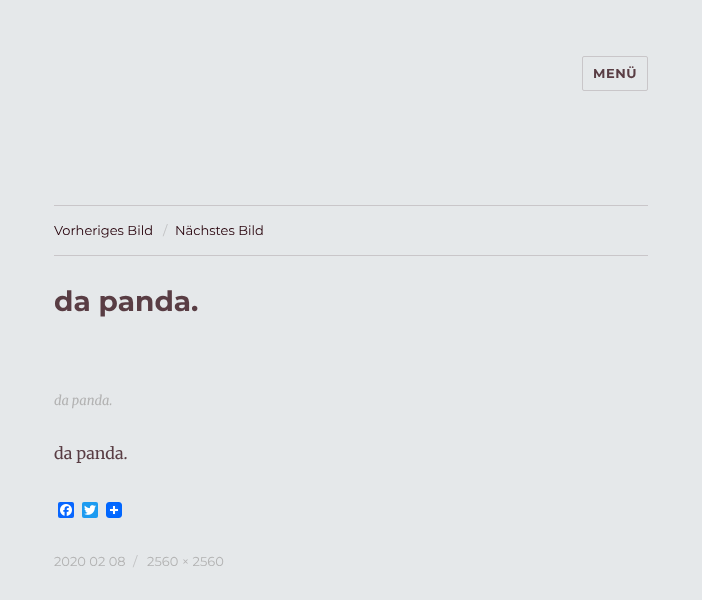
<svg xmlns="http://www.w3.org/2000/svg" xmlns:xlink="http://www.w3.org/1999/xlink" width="702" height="600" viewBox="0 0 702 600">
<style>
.cls-1{font:bold 13px Montserrat;letter-spacing:0.5px;fill:#593d44}
.cls-2{font:13px Montserrat;fill:#26000a}
.cls-3{font:13px Montserrat;fill:#c1c2c3}
.cls-4{font:bold 28px Montserrat;fill:#593d44}
.cls-5{font:italic 13px Merriweather;fill:#b2b2b2}
.cls-6{font:16px Merriweather;fill:#593d44}
.cls-7{font:13px Montserrat;fill:#b2b2b2}
</style>
<rect width="100%" height="100%" fill="#e5e8ea"/>
<rect fill="none" stroke="#c9c6c9" x="582.5" y="56.5" width="65" height="34" rx="1.5"/>
<rect fill="#c9c6c9" x="54" y="205" width="594" height="1"/>
<rect fill="#c9c6c9" x="54" y="255" width="594" height="1"/>
<rect fill="#0866ff" x="58" y="502" width="16" height="16" rx="2"/>
<image xlink:href="image0.png" x="60" y="504" width="12" height="12"/>
<rect fill="#1d9bf0" x="82" y="502" width="16" height="16" rx="2"/>
<image xlink:href="image1.png" x="84" y="505" width="12" height="10"/>
<image xlink:href="image2.png" x="106" y="502" width="16" height="16"/>
<text class="cls-1" x="593" y="78">MENÜ</text>
<text class="cls-2" x="54" y="235">Vorheriges Bild</text>
<text class="cls-3" x="163" y="235">/</text>
<text class="cls-2" x="175" y="235">Nächstes Bild</text>
<text class="cls-4" x="54" y="311">da panda.</text>
<text class="cls-5" x="54" y="405">da panda.</text>
<text class="cls-6" x="54" y="459">da panda.</text>
<text class="cls-7" x="54" y="566">2020 02 08</text>
<text class="cls-3" x="133" y="566">/</text>
<text class="cls-7" x="147" y="566">2560 × 2560</text>
</svg>
